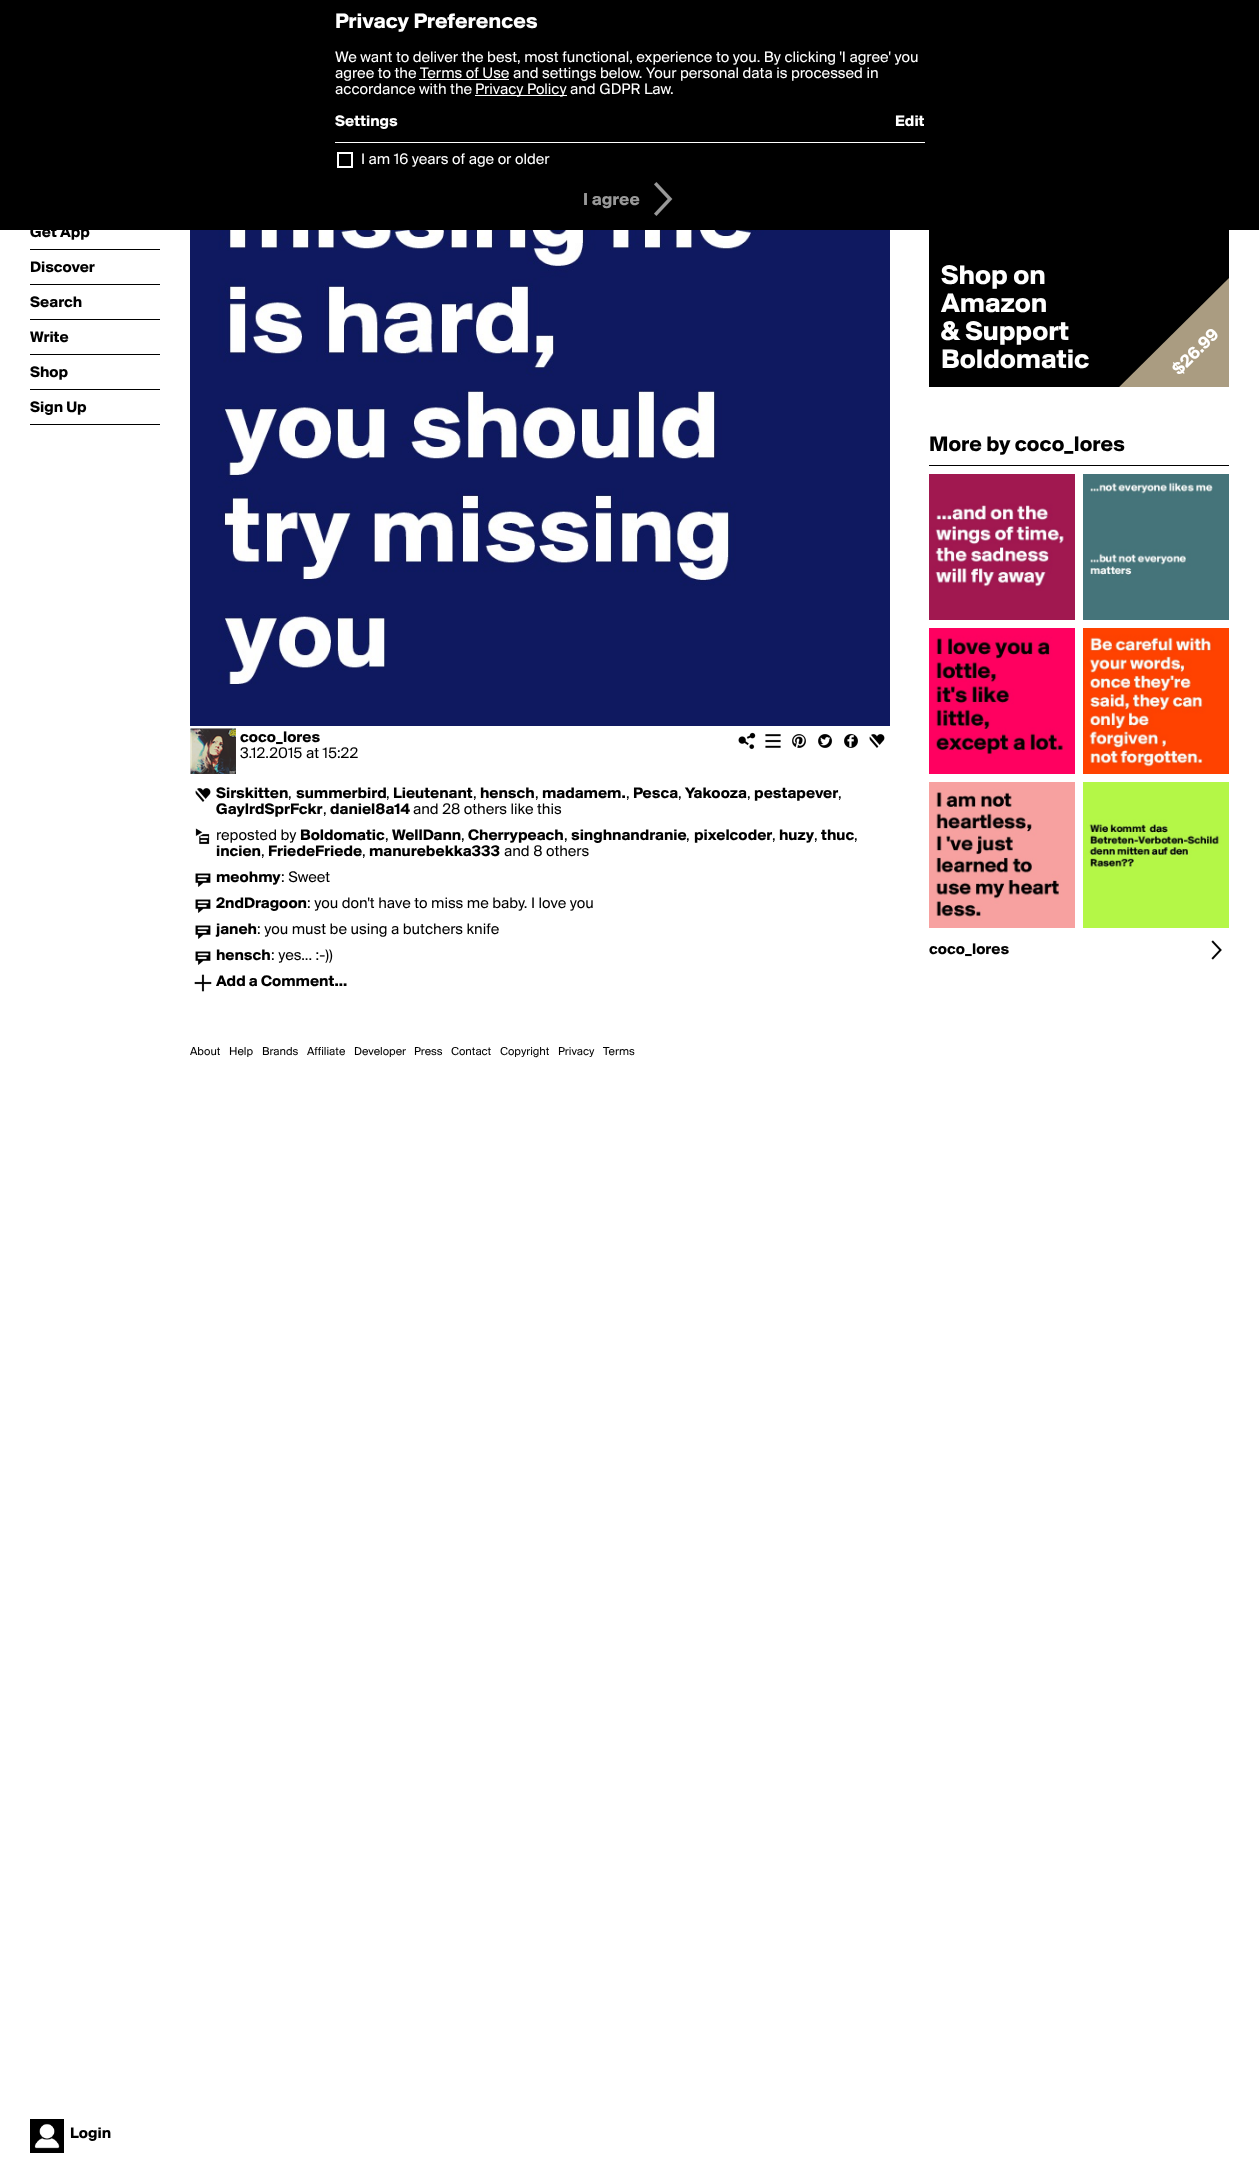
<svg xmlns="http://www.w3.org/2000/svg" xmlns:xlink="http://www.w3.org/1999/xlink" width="1259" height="2183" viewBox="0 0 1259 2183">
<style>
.cls-1{font:bold 22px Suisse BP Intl;fill:#ffffff}
.cls-2{font:16px Suisse BP Intl;fill:#ffffff}
.cls-3{font:bold 16px Suisse BP Intl;fill:#ffffff}
.cls-4{font:bold 18px Suisse BP Intl;fill:#999999}
.cls-5{font:bold 16px Suisse BP Intl;fill:#000000}
.cls-6{font:16px Suisse BP Intl;fill:#000000}
.cls-7{font:bold 28px Suisse BP Intl;fill:#ffffff}
.cls-8{font:bold 18px Suisse BP Intl;fill:#ffffff}
.cls-9{font:bold 22px Suisse BP Intl;fill:#000000}
.cls-10{font:12px Suisse BP Intl;fill:#000000}
</style>
<defs>
<clipPath id="clip1"><rect x="929" y="87" width="300" height="300"/></clipPath>
</defs>
<rect width="100%" height="100%" fill="#ffffff"/>
<rect fill="#000000" x="0" y="0" width="1259" height="230"/>
<rect fill="#ffffff" x="419" y="79" width="90" height="1"/>
<rect fill="#ffffff" x="475" y="95" width="92" height="1"/>
<rect fill="#ffffff" x="335" y="142" width="590" height="1"/>
<rect fill="none" stroke="#ffffff" stroke-width="2" x="338" y="153" width="14" height="14"/>
<image xlink:href="image0.png" x="654" y="182" width="19" height="34"/>
<rect fill="#000000" x="30" y="249" width="130" height="1"/>
<rect fill="#000000" x="30" y="284" width="130" height="1"/>
<rect fill="#000000" x="30" y="319" width="130" height="1"/>
<rect fill="#000000" x="30" y="354" width="130" height="1"/>
<rect fill="#000000" x="30" y="389" width="130" height="1"/>
<rect fill="#000000" x="30" y="424" width="130" height="1"/>
<image xlink:href="image1.png" x="30" y="2119" width="34" height="34"/>
<image xlink:href="image2.png" x="190" y="230" width="700" height="496"/>
<image xlink:href="image3.png" x="190" y="728" width="46" height="46"/>
<image xlink:href="image4.png" x="738" y="732" width="18" height="18"/>
<image xlink:href="image5.png" x="765" y="734" width="16" height="14"/>
<image xlink:href="image6.png" x="792" y="734" width="14" height="14"/>
<image xlink:href="image7.png" x="818" y="734" width="15" height="14"/>
<image xlink:href="image8.png" x="844" y="733" width="14" height="15"/>
<image xlink:href="image9.png" x="869" y="734" width="16" height="14"/>
<image xlink:href="image9.png" x="195" y="788" width="16" height="14"/>
<image xlink:href="image10.png" x="195" y="828" width="15" height="17"/>
<image xlink:href="image11.png" x="195" y="873" width="16" height="14"/>
<image xlink:href="image11.png" x="195" y="899" width="16" height="14"/>
<image xlink:href="image11.png" x="195" y="925" width="16" height="14"/>
<image xlink:href="image11.png" x="195" y="951" width="16" height="14"/>
<image xlink:href="image12.png" x="194" y="974" width="18" height="18"/>
<rect fill="#000000" x="929" y="230" width="300" height="157"/>
<g clip-path="url(#clip1)">
<path fill="#aa9c81" d="M1105 401L1245 262L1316 333L1176 472Z"/>
</g>
<rect fill="#000000" x="929" y="465" width="300" height="1"/>
<image xlink:href="image13.png" x="929" y="474" width="146" height="146"/>
<image xlink:href="image14.png" x="1083" y="474" width="146" height="146"/>
<image xlink:href="image15.png" x="929" y="628" width="146" height="146"/>
<image xlink:href="image16.png" x="1083" y="628" width="146" height="146"/>
<image xlink:href="image17.png" x="929" y="782" width="146" height="146"/>
<image xlink:href="image18.png" x="1083" y="782" width="146" height="146"/>
<image xlink:href="image19.png" x="1211" y="940" width="11" height="20"/>
<text class="cls-1" x="335" y="28">Privacy Preferences</text>
<text class="cls-2"><tspan x="335" y="62">We want to deliver the best, most functional, experience to you. By clicking 'I agree' you</tspan><tspan x="335" y="78">agree to the Terms of Use and settings below. Your personal data is processed in</tspan><tspan x="335" y="94">accordance with the</tspan></text>
<text class="cls-2" x="475" y="94">Privacy Policy and GDPR Law.</text>
<text class="cls-3" x="335" y="126">Settings</text>
<text class="cls-3" x="895" y="126">Edit</text>
<text class="cls-2" x="361" y="164">I am 16 years of age or older</text>
<text class="cls-4" x="583" y="205">I agree</text>
<text class="cls-5" x="30" y="237">Get App</text>
<text class="cls-5" x="30" y="272">Discover</text>
<text class="cls-5" x="30" y="307">Search</text>
<text class="cls-5" x="30" y="342">Write</text>
<text class="cls-5" x="30" y="377">Shop</text>
<text class="cls-5" x="30" y="412">Sign Up</text>
<text class="cls-5" x="70" y="2138">Login</text>
<text class="cls-5" x="240" y="742">coco_lores</text>
<text class="cls-6" x="240" y="758">3.12.2015 at 15:22</text>
<text class="cls-5" x="216" y="798">Sirskitten</text>
<text class="cls-6" x="288" y="798">,</text>
<text class="cls-5" x="296" y="798">summerbird</text>
<text class="cls-6" x="386" y="798">,</text>
<text class="cls-5" x="393" y="798">Lieutenant</text>
<text class="cls-6" x="473" y="798">,</text>
<text class="cls-5" x="480" y="798">hensch</text>
<text class="cls-6" x="535" y="798">,</text>
<text class="cls-5" x="542" y="798">madamem.</text>
<text class="cls-6" x="626" y="798">,</text>
<text class="cls-5" x="633" y="798">Pesca</text>
<text class="cls-6" x="678" y="798">,</text>
<text class="cls-5" x="685" y="798">Yakooza</text>
<text class="cls-6" x="747" y="798">,</text>
<text class="cls-5" x="754" y="798">pestapever</text>
<text class="cls-6" x="838" y="798">,</text>
<text class="cls-5" x="216" y="814">GaylrdSprFckr</text>
<text class="cls-6" x="323" y="814">,</text>
<text class="cls-5" x="330" y="814">daniel8a14</text>
<text class="cls-6" x="413" y="814">and 28 others like this</text>
<text class="cls-6" x="216" y="840">reposted by</text>
<text class="cls-5" x="300" y="840">Boldomatic</text>
<text class="cls-6" x="385" y="840">,</text>
<text class="cls-5" x="392" y="840">WellDann</text>
<text class="cls-6" x="461" y="840">,</text>
<text class="cls-5" x="468" y="840">Cherrypeach</text>
<text class="cls-6" x="564" y="840">,</text>
<text class="cls-5" x="571" y="840">singhnandranie</text>
<text class="cls-6" x="686" y="840">,</text>
<text class="cls-5" x="694" y="840">pixelcoder</text>
<text class="cls-6" x="772" y="840">,</text>
<text class="cls-5" x="779" y="840">huzy</text>
<text class="cls-6" x="814" y="840">,</text>
<text class="cls-5" x="821" y="840">thuc</text>
<text class="cls-6" x="854" y="840">,</text>
<text class="cls-5" x="216" y="856">incien</text>
<text class="cls-6" x="261" y="856">,</text>
<text class="cls-5" x="268" y="856">FriedeFriede</text>
<text class="cls-6" x="362" y="856">,</text>
<text class="cls-5" x="369" y="856">manurebekka333</text>
<text class="cls-6" x="504" y="856">and 8 others</text>
<text class="cls-5" x="216" y="882">meohmy</text>
<text class="cls-6" x="281" y="882">: Sweet</text>
<text class="cls-5" x="216" y="908">2ndDragoon</text>
<text class="cls-6" x="307" y="908">: you don't have to miss me baby. I love you</text>
<text class="cls-5" x="216" y="934">janeh</text>
<text class="cls-6" x="257" y="934">: you must be using a butchers knife</text>
<text class="cls-5" x="216" y="960">hensch</text>
<text class="cls-6" x="271" y="960">: yes... :-))</text>
<text class="cls-5" x="216" y="986">Add a Comment...</text>
<text class="cls-7"><tspan x="941" y="284">Shop on</tspan><tspan x="941" y="312">Amazon</tspan><tspan x="941" y="340">&amp; Support</tspan><tspan x="941" y="368">Boldomatic</tspan></text>
<text class="cls-8" x="1179" y="376" transform="rotate(-45 1179 376)">$26.99</text>
<text class="cls-9" x="929" y="451">More by coco_lores</text>
<text class="cls-5" x="929" y="954">coco_lores</text>
<text class="cls-10" x="190" y="1055">About</text>
<text class="cls-10" x="229" y="1055">Help</text>
<text class="cls-10" x="262" y="1055">Brands</text>
<text class="cls-10" x="307" y="1055">Affiliate</text>
<text class="cls-10" x="354" y="1055">Developer</text>
<text class="cls-10" x="414" y="1055">Press</text>
<text class="cls-10" x="451" y="1055">Contact</text>
<text class="cls-10" x="500" y="1055">Copyright</text>
<text class="cls-10" x="558" y="1055">Privacy</text>
<text class="cls-10" x="603" y="1055">Terms</text>
</svg>
